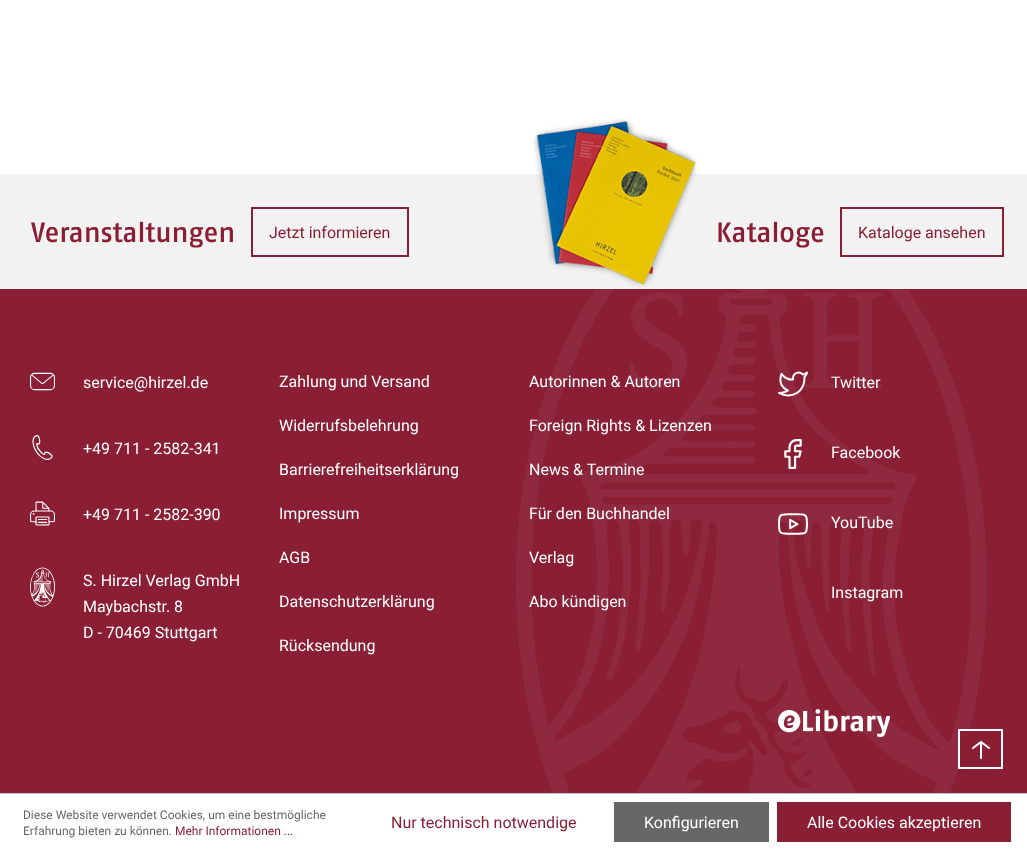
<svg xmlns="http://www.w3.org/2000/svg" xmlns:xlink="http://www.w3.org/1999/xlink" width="1027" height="850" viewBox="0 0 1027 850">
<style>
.cls-1{font:500 28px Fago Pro;fill:#891e35}
.cls-2{font:16px Roboto;fill:#891e35}
.cls-3{font:16px Roboto;fill:#ffffff}
.cls-4{font:12px Roboto;fill:#676767}
.cls-5{font:12px Roboto;fill:#891e35}
</style>
<rect width="100%" height="100%" fill="#ffffff"/>
<rect fill="#f2f2f2" x="0" y="174" width="1027" height="115"/>
<rect fill="none" stroke="#891e35" stroke-width="2" x="252" y="208" width="156" height="48"/>
<image xlink:href="image0.png" x="533" y="118" width="165" height="169"/>
<rect fill="none" stroke="#891e35" stroke-width="2" x="841" y="208" width="162" height="48"/>
<rect fill="#891e35" x="0" y="289" width="1027" height="504"/>
<image xlink:href="image2.png" x="30" y="372" width="25" height="19"/>
<image xlink:href="image3.png" x="32" y="435" width="21" height="25"/>
<image xlink:href="image4.png" x="30" y="501" width="25" height="25"/>
<image xlink:href="image5.png" x="30" y="567" width="25" height="40"/>
<image xlink:href="image6.png" x="778" y="371" width="30" height="26"/>
<image xlink:href="image7.png" x="784" y="439" width="18" height="30"/>
<image xlink:href="image8.png" x="778" y="513" width="30" height="22"/>
<image xlink:href="image9.png" x="778" y="709" width="112" height="28"/>
<rect fill="#bcc1c7" x="0" y="793" width="1027" height="1"/>
<rect fill="#676767" x="614" y="802" width="155" height="40"/>
<rect fill="#891e35" x="777" y="802" width="234" height="40"/>
<text class="cls-1" x="31" y="242">Veranstaltungen</text>
<text class="cls-2" x="269" y="238">Jetzt informieren</text>
<text class="cls-1" x="716" y="242">Kataloge</text>
<text class="cls-2" x="858" y="238">Kataloge ansehen</text>
<text class="cls-3" x="83" y="388">service@hirzel.de</text>
<text class="cls-3" x="83" y="454">+49 711 - 2582-341</text>
<text class="cls-3" x="83" y="520">+49 711 - 2582-390</text>
<text class="cls-3"><tspan x="83" y="586">S. Hirzel Verlag GmbH</tspan><tspan x="83" y="612">Maybachstr. 8</tspan><tspan x="83" y="638">D - 70469 Stuttgart</tspan></text>
<text class="cls-3" x="279" y="387">Zahlung und Versand</text>
<text class="cls-3" x="279" y="431">Widerrufsbelehrung</text>
<text class="cls-3" x="279" y="475">Barrierefreiheitserklärung</text>
<text class="cls-3" x="279" y="519">Impressum</text>
<text class="cls-3" x="279" y="563">AGB</text>
<text class="cls-3" x="279" y="607">Datenschutzerklärung</text>
<text class="cls-3" x="279" y="651">Rücksendung</text>
<text class="cls-3" x="529" y="387">Autorinnen &amp; Autoren</text>
<text class="cls-3" x="529" y="431">Foreign Rights &amp; Lizenzen</text>
<text class="cls-3" x="529" y="475">News &amp; Termine</text>
<text class="cls-3" x="529" y="519">Für den Buchhandel</text>
<text class="cls-3" x="529" y="563">Verlag</text>
<text class="cls-3" x="529" y="607">Abo kündigen</text>
<text class="cls-3" x="831" y="388">Twitter</text>
<text class="cls-3" x="831" y="458">Facebook</text>
<text class="cls-3" x="831" y="528">YouTube</text>
<text class="cls-3" x="831" y="598">Instagram</text>
<image xlink:href="image1.png" x="516" y="269" width="471" height="524"/>
<rect fill="#891e35" x="960" y="731" width="10" height="33"/>
<rect fill="none" stroke="#ffffff" stroke-width="2" x="959" y="730" width="43" height="38"/>
<image xlink:href="image10.png" x="972" y="741" width="18" height="18"/>
<text class="cls-4"><tspan x="23" y="819">Diese Website verwendet Cookies, um eine bestmögliche</tspan><tspan x="23" y="835">Erfahrung bieten zu können.</tspan></text>
<text class="cls-5" x="175" y="835">Mehr Informationen ...</text>
<text class="cls-2" x="391" y="828">Nur technisch notwendige</text>
<text class="cls-3" x="644" y="828">Konfigurieren</text>
<text class="cls-3" x="807" y="828">Alle Cookies akzeptieren</text>
</svg>
